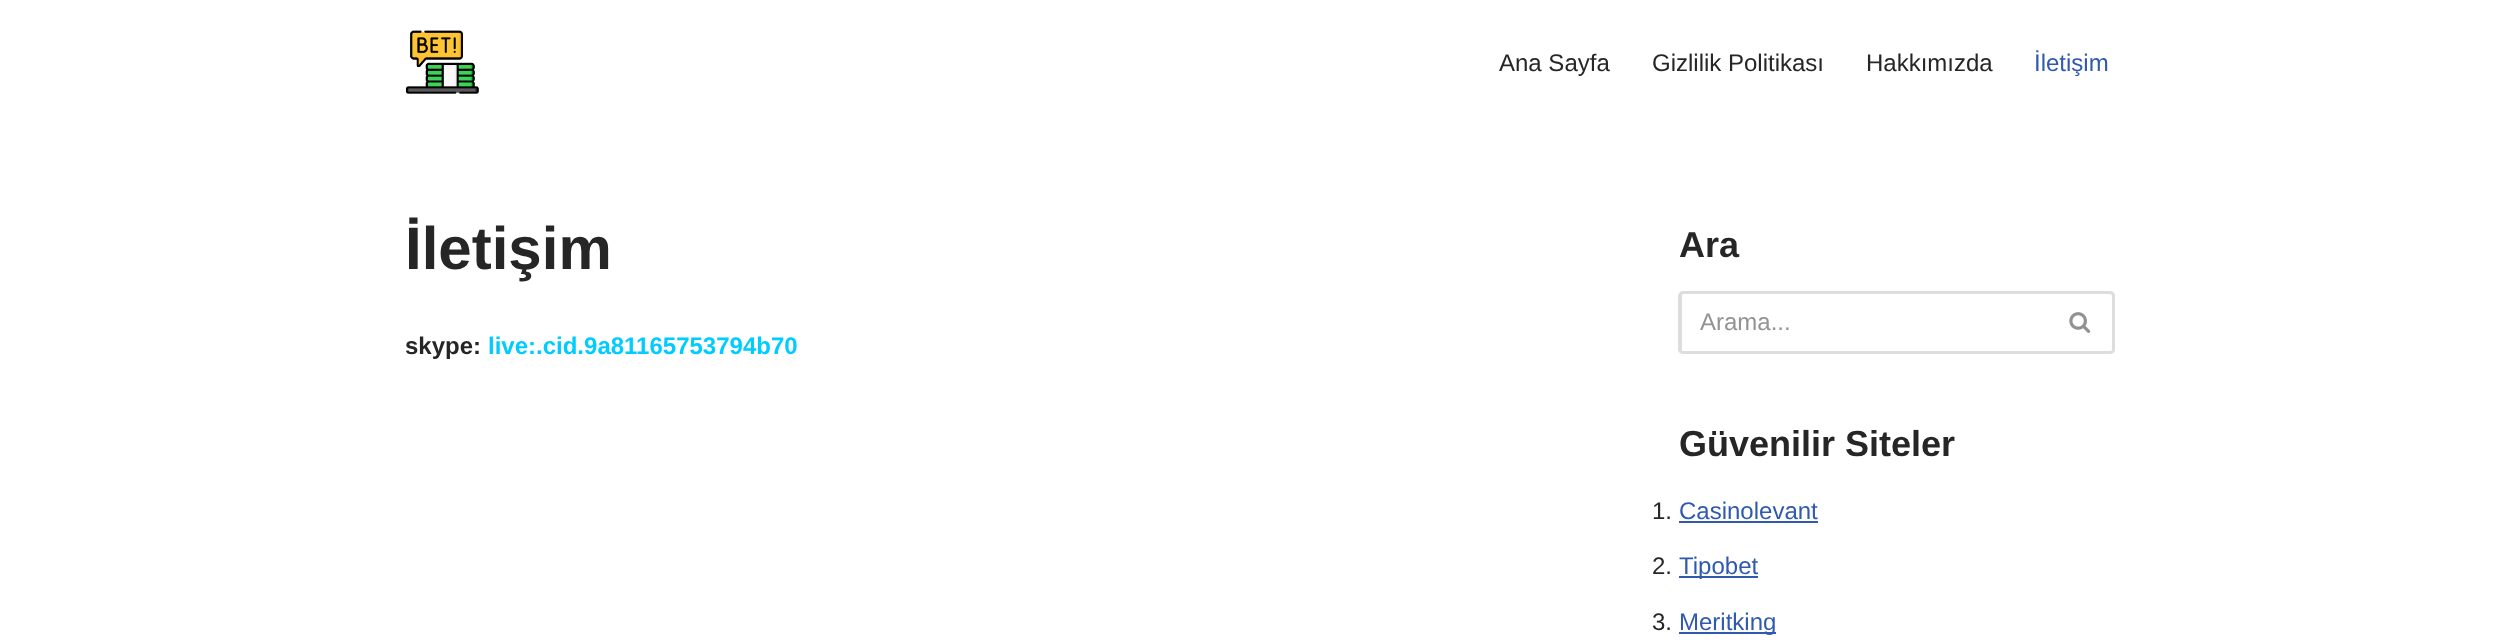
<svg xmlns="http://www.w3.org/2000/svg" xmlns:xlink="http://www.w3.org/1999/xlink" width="2520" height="642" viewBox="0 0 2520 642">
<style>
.cls-1{font:24px Liberation Sans;fill:#272626}
.cls-2{font:24px Liberation Sans;fill:#2f5aae}
.cls-3{font:bold 60px Liberation Sans;fill:#272626}
.cls-4{font:bold 24px Liberation Sans;fill:#272626}
.cls-5{font:bold 24px Liberation Sans;fill:#00ccff}
.cls-6{font:bold 36px Liberation Sans;fill:#272626}
.cls-7{font:24px Liberation Sans;fill:#939393}
</style>
<rect width="100%" height="100%" fill="#ffffff"/>
<image xlink:href="image0.png" x="405" y="30" width="74" height="64"/>
<path fill="#dddddd" fill-rule="evenodd" d="M1683 291H2048V354H1683C1681 354 1678 352 1678 350V296C1678 293 1681 291 1683 291ZM1683 294H2048V351H1683C1682 351 1682 350 1682 350V296C1682 295 1682 294 1683 294Z"/>
<path fill="#dddddd" fill-rule="evenodd" d="M2048 291H2110C2113 291 2115 293 2115 296V350C2115 352 2113 354 2110 354H2048ZM2048 294H2110C2111 294 2112 295 2112 296V350C2112 350 2111 351 2110 351H2048Z"/>
<image xlink:href="image1.png" x="2069" y="312" width="22" height="21"/>
<rect fill="#2f5aae" x="1679" y="521" width="139" height="2"/>
<rect fill="#2f5aae" x="1679" y="576" width="79" height="2"/>
<rect fill="#2f5aae" x="1679" y="632" width="97" height="2"/>
<text class="cls-1" x="1499" y="71">Ana Sayfa</text>
<text class="cls-1" x="1652" y="71">Gizlilik Politikası</text>
<text class="cls-1" x="1866" y="71">Hakkımızda</text>
<text class="cls-2" x="2034" y="71">İletişim</text>
<text class="cls-3" x="405" y="269">İletişim</text>
<text class="cls-4" x="405" y="354">skype:</text>
<text class="cls-5" x="488" y="354">live:.cid.9a81165753794b70</text>
<text class="cls-6" x="1679" y="257">Ara</text>
<text class="cls-7" x="1700" y="330">Arama...</text>
<text class="cls-6" x="1679" y="456">Güvenilir Siteler</text>
<text class="cls-1" x="1652" y="519">1.</text>
<text class="cls-2" x="1679" y="519">Casinolevant</text>
<text class="cls-1" x="1652" y="574">2.</text>
<text class="cls-2" x="1679" y="574">Tipobet</text>
<text class="cls-1" x="1652" y="630">3.</text>
<text class="cls-2" x="1679" y="630">Meritking</text>
</svg>
